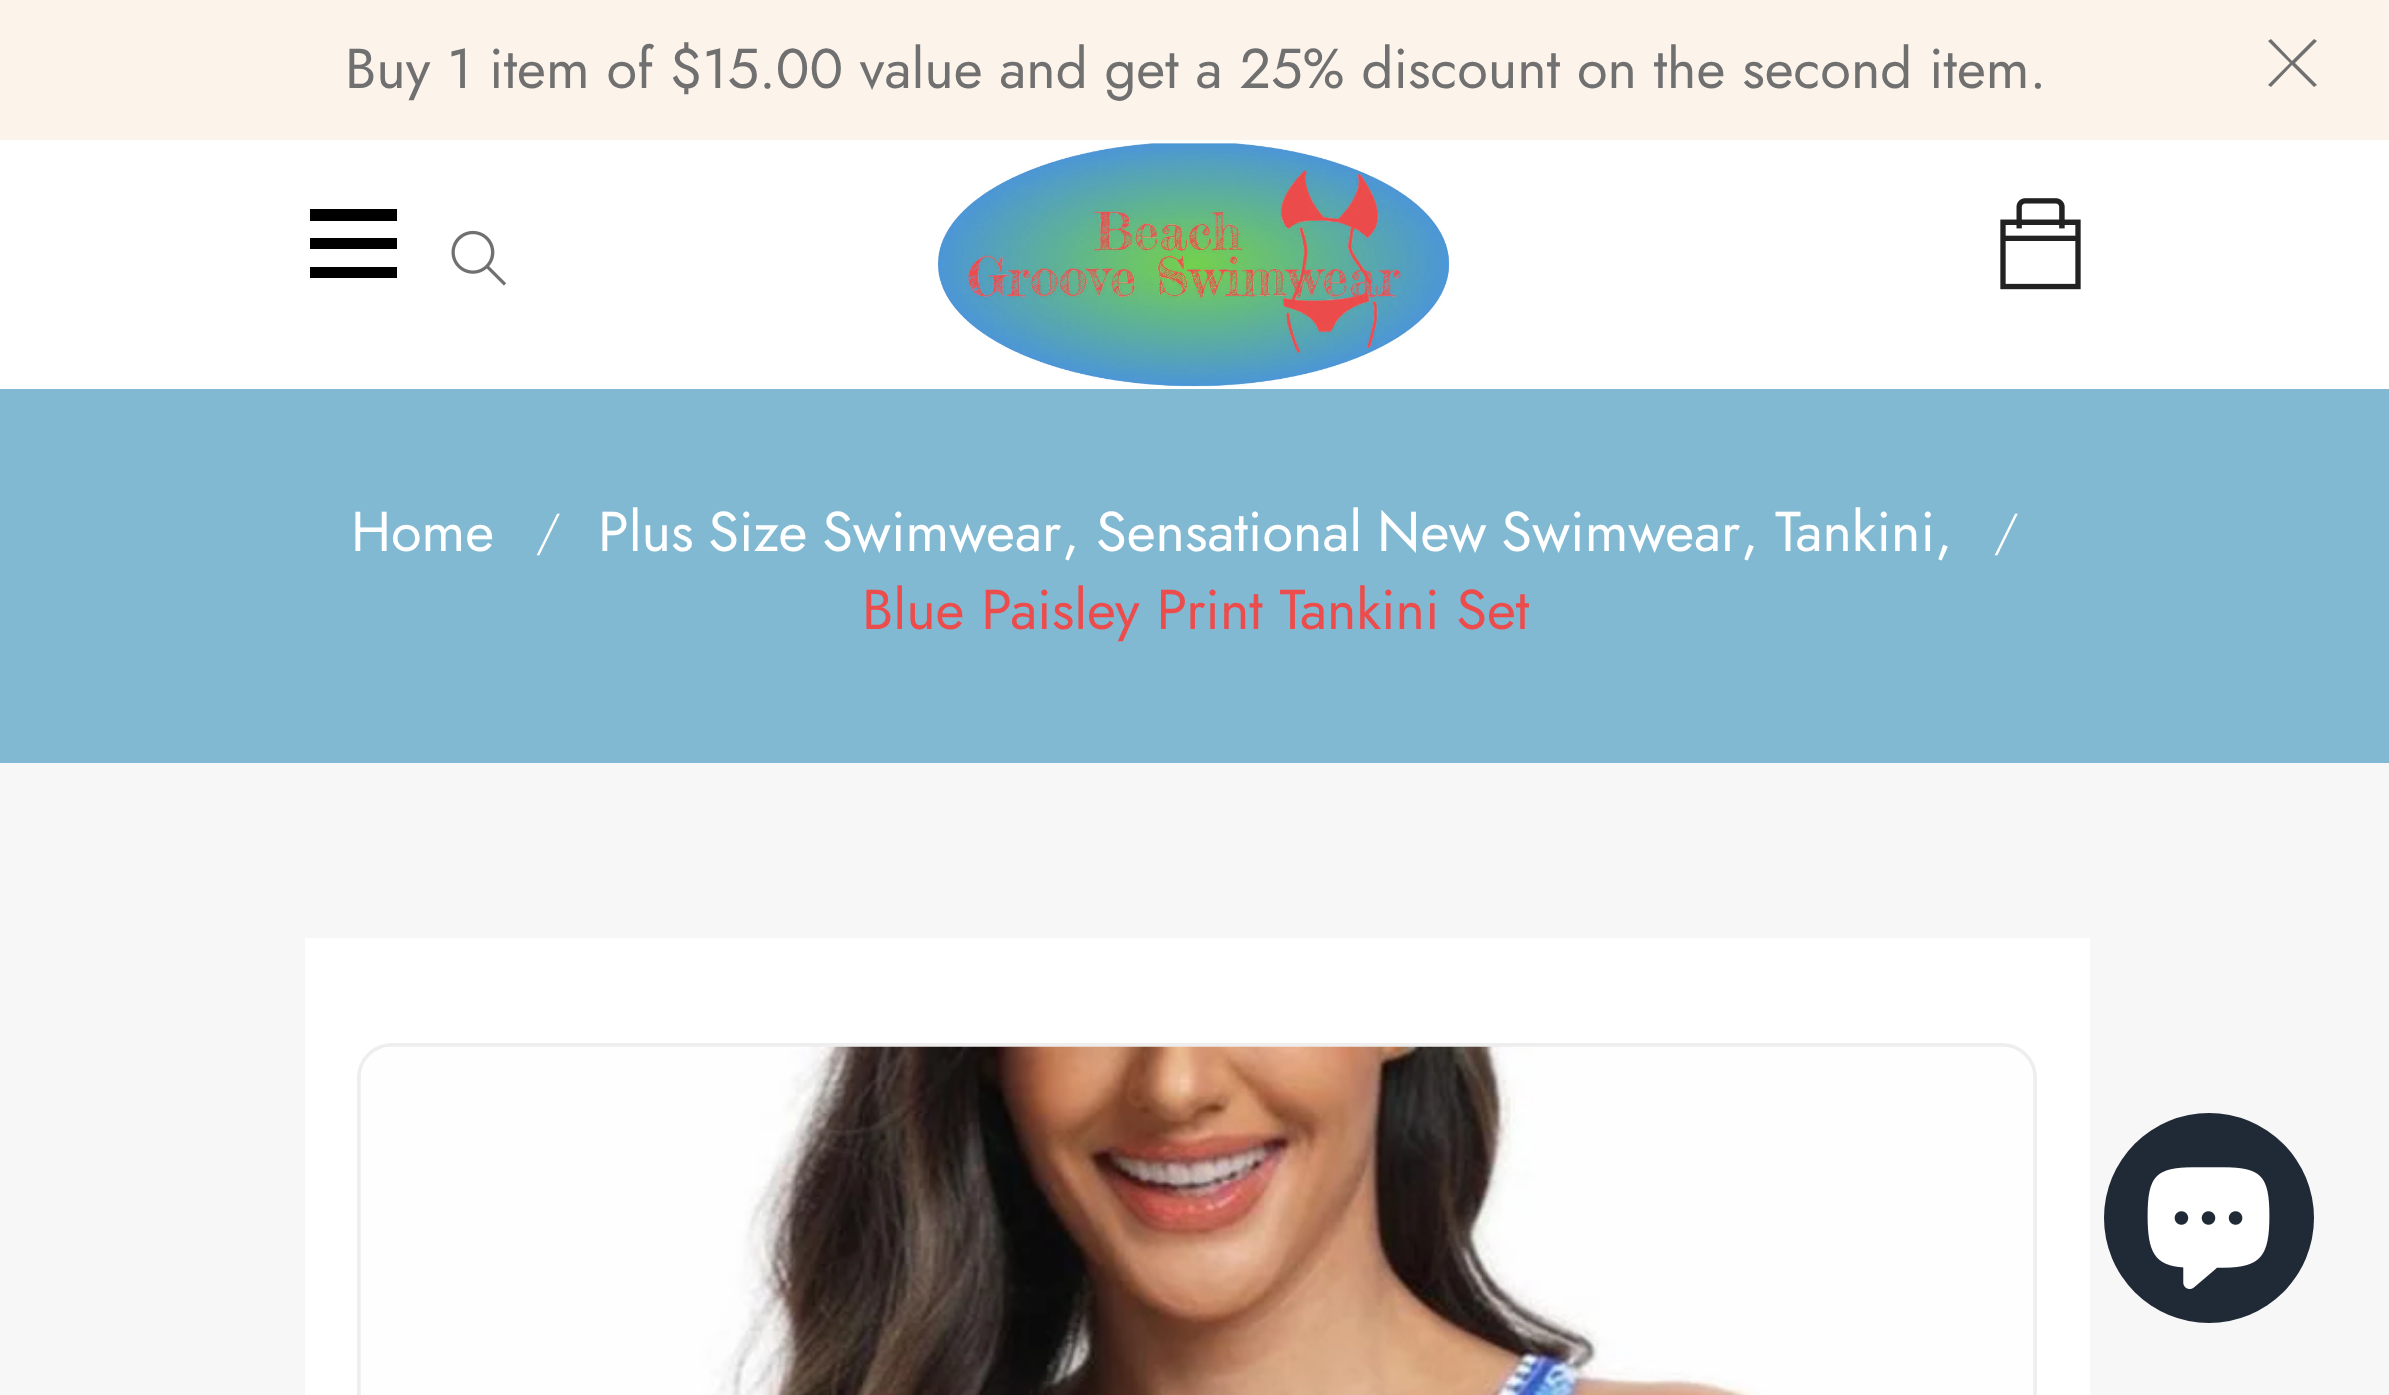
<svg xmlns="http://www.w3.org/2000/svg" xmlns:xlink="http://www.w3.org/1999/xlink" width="2389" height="1395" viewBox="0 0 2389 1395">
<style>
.cls-1{font:56px Jost;fill:#707070}
.cls-2{font:56px Jost;fill:#ffffff}
.cls-3{font:300 49px Jost;fill:#ffffff}
.cls-4{font:56px Jost;fill:#ec4c4c}
</style>
<rect width="100%" height="100%" fill="#f7f7f7"/>
<rect fill="#fcf3eb" x="0" y="0" width="2389" height="140"/>
<path fill="#707070" d="M2295 63L2317 85L2314 87L2292 65L2271 87L2268 85L2290 63L2268 41L2271 39L2292 61L2314 39L2317 41Z"/>
<rect fill="#ffffff" x="0" y="140" width="2389" height="249"/>
<path fill="#000000" d="M397 209V221H310V209ZM310 249H397V238H310ZM310 278H397V267H310Z"/>
<image xlink:href="image0.png" x="451" y="230" width="56" height="56"/>
<image xlink:href="image1.png" x="937" y="143" width="515" height="245"/>
<image xlink:href="image2.png" x="2000" y="198" width="81" height="92"/>
<rect fill="#82b9d2" x="0" y="389" width="2389" height="374"/>
<rect fill="#ffffff" x="305" y="938" width="1785" height="457"/>
<rect fill="none" stroke="#eeeeee" stroke-width="4" x="359" y="1045" width="1676" height="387" rx="33"/>
<image xlink:href="image3.png" x="360" y="1046" width="1674" height="349"/>
<circle fill="#202a36" cx="2209" cy="1218" r="105"/>
<image xlink:href="image4.png" x="2147" y="1167" width="123" height="122"/>
<text class="cls-1" x="345" y="88">Buy 1 item of $15.00 value and get a 25% discount on the second item.</text>
<text class="cls-2" x="351" y="551">Home</text>
<text class="cls-3" x="536" y="548">/</text>
<text class="cls-2" x="598" y="551" word-spacing="-2">Plus Size Swimwear</text>
<text class="cls-2" x="1062" y="551">,</text>
<text class="cls-2" x="1096" y="551" word-spacing="-2">Sensational New Swimwear</text>
<text class="cls-2" x="1741" y="551">, Tankini,</text>
<text class="cls-3" x="1994" y="548">/</text>
<text class="cls-4" x="862" y="629">Blue Paisley Print Tankini Set</text>
</svg>
